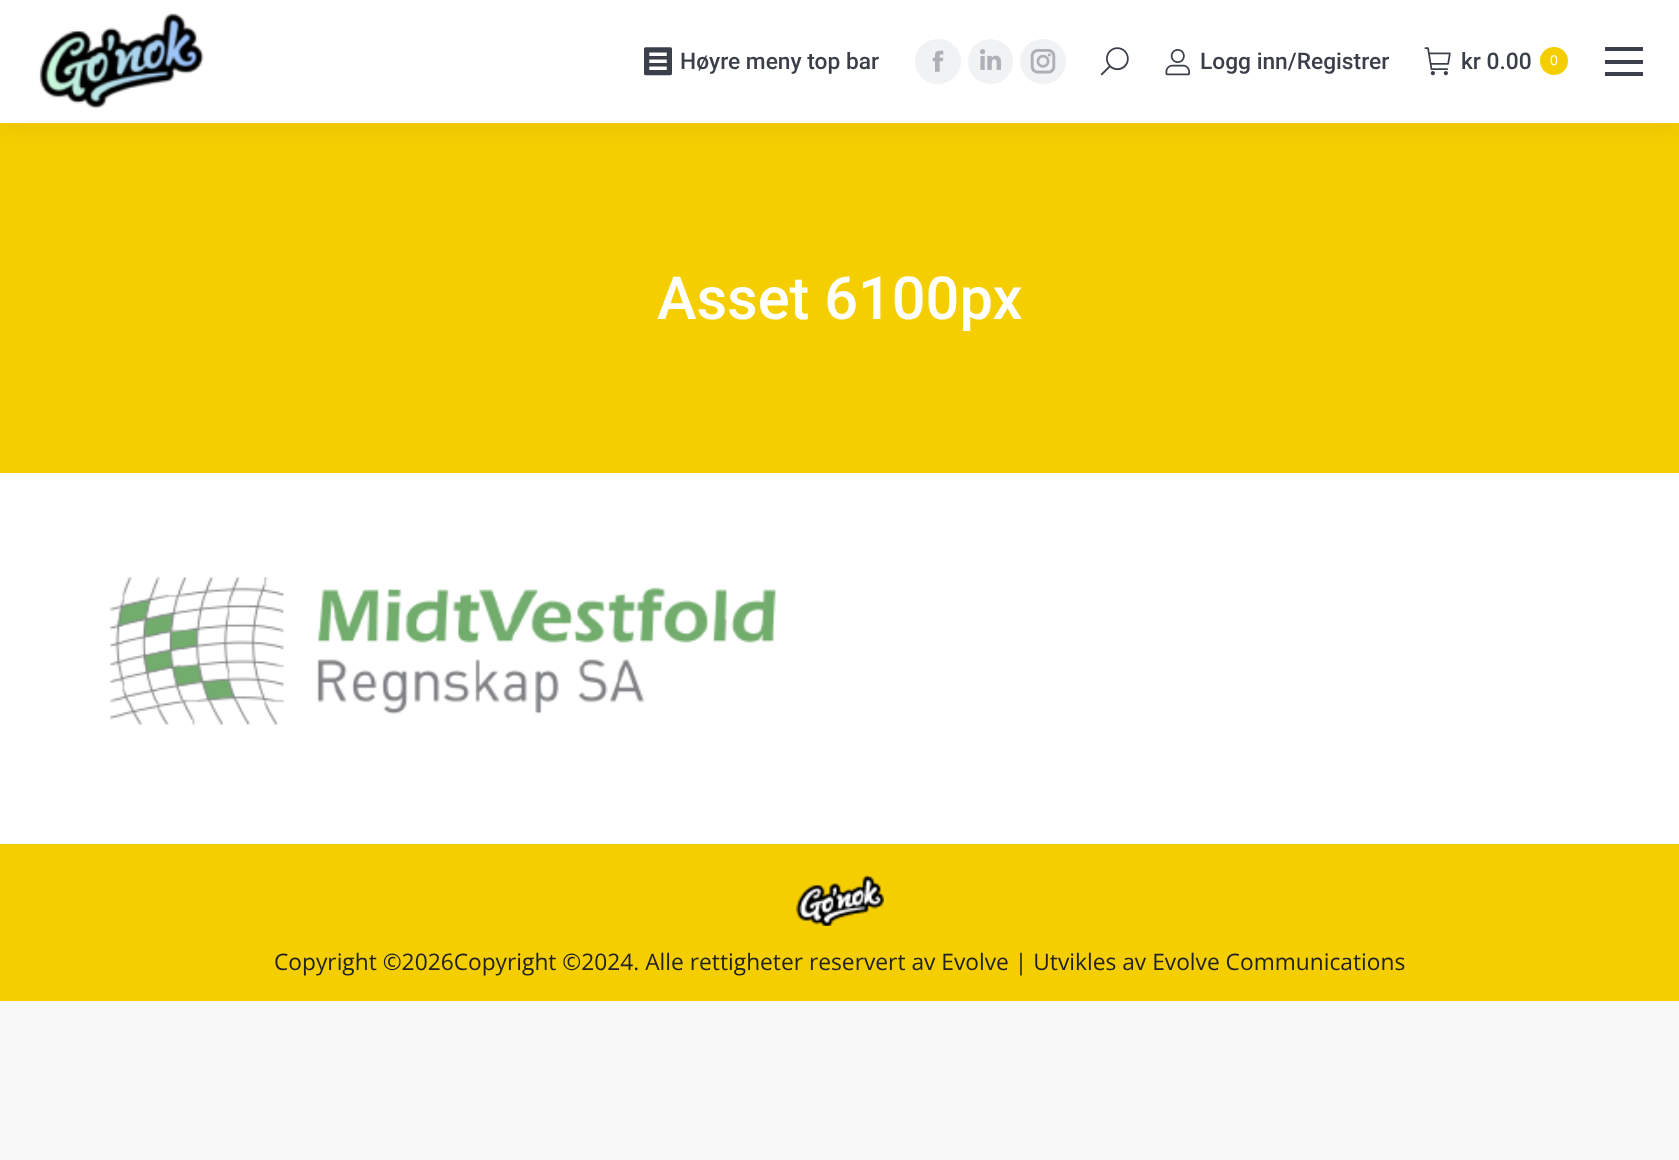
<svg xmlns="http://www.w3.org/2000/svg" xmlns:xlink="http://www.w3.org/1999/xlink" width="1679" height="1160" viewBox="0 0 1679 1160">
<style>
.cls-1{font:500 22.75px Roboto;fill:#3b3f4a}
.cls-2{font:14px Liberation Sans;fill:#ffffff}
.cls-3{font:500 59.5px Roboto;fill:#ffffff}
.cls-4{font:22.75px Open Sans;fill:#222222}
</style>
<rect width="100%" height="100%" fill="#f8f8f9"/>
<rect fill="#ffffff" x="0" y="473" width="1679" height="371"/>
<rect fill="#f5ce00" x="0" y="123" width="1679" height="350"/>
<rect fill="#000000" fill-opacity="0.07" filter="blur(13px)" x="-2" y="-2" width="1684" height="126"/>
<rect fill="#ffffff" x="0" y="0" width="1679" height="123"/>
<image xlink:href="image0.png" x="39" y="13" width="165" height="96"/>
<image xlink:href="image1.png" x="644" y="47" width="28" height="29"/>
<rect fill="#f1f2f3" x="915" y="39" width="46" height="45" rx="22.5"/>
<image xlink:href="image2.png" x="932" y="50" width="12" height="22"/>
<circle fill="#f1f2f3" cx="990.5" cy="61.5" r="22.5"/>
<image xlink:href="image3.png" x="980" y="49" width="21" height="21"/>
<rect fill="#f1f2f3" x="1020" y="39" width="46" height="45" rx="22.5"/>
<image xlink:href="image4.png" x="1030" y="49" width="26" height="25"/>
<image xlink:href="image5.png" x="1100" y="47" width="29" height="29"/>
<image xlink:href="image6.png" x="1165" y="49" width="25" height="27"/>
<image xlink:href="image7.png" x="1424" y="47" width="27" height="29"/>
<circle fill="#f5ce00" cx="1554" cy="61" r="14"/>
<rect fill="#3b3f4a" x="1605" y="47" width="38" height="4"/>
<rect fill="#3b3f4a" x="1605" y="60" width="38" height="4"/>
<rect fill="#3b3f4a" x="1605" y="72" width="38" height="4"/>
<image xlink:href="image8.png" x="109" y="577" width="667" height="148"/>
<rect fill="#f5ce00" x="0" y="844" width="1679" height="157"/>
<image xlink:href="image9.png" x="796" y="875" width="88" height="51"/>
<text class="cls-1" x="680" y="69">Høyre meny top bar</text>
<text class="cls-1" x="1200" y="69">Logg inn/Registrer</text>
<text class="cls-1" x="1461" y="69">kr 0.00</text>
<text class="cls-2" x="1550" y="65">0</text>
<text class="cls-3" x="657" y="319">Asset 6100px</text>
<text class="cls-4" x="274" y="970">Copyright ©2026Copyright ©2024. Alle rettigheter reservert av Evolve | Utvikles av Evolve Communications</text>
</svg>
